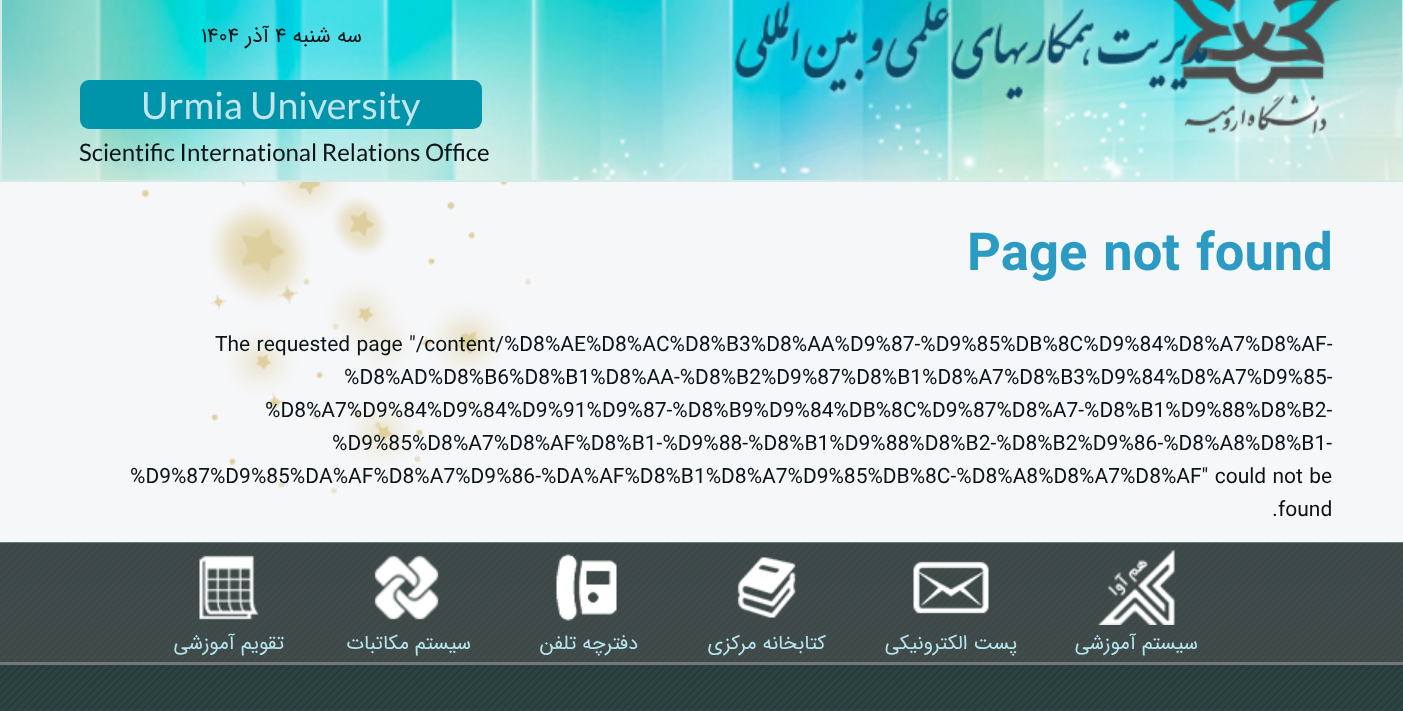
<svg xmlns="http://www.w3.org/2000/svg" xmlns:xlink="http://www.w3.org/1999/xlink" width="1403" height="711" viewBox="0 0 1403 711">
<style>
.cls-1{font:21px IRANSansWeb;fill:#0c1418}
.cls-2{font:21px IRANSansWeb;direction:rtl;fill:#0c1418}
.cls-3{font:37.5px Lato;fill:#c2e5eb}
.cls-4{font:24px Lato;fill:#0c1418}
.cls-5{font:bold 52.5px IRANSansWeb;fill:#2c9bc3}
.cls-6{font:20px IRANSansWeb;direction:rtl;fill:#b5e4ed}
</style>
<rect width="100%" height="100%" fill="#f6f7f9"/>
<image xlink:href="image0.png" x="141" y="182" width="391" height="313"/>
<image xlink:href="image1.png" x="2" y="0" width="1400" height="180"/>
<rect fill="none" stroke="#d1ebe6" stroke-width="2" x="1" y="-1" width="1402" height="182"/>
<rect fill="#0094ab" x="80" y="80" width="402" height="49" rx="9"/>
<image xlink:href="image3.png" x="1172" y="0" width="169" height="135"/>
<image xlink:href="image2.png" x="732" y="0" width="481" height="106"/>
<image xlink:href="image4.png" x="0" y="542" width="1403" height="169"/>
<rect fill="#555555" fill-opacity="0.52" x="0" y="543" width="1403" height="119"/>
<rect fill="#777777" x="0" y="662" width="1403" height="3"/>
<image xlink:href="image5.png" x="199" y="555" width="60" height="65"/>
<image xlink:href="image6.png" x="374" y="555" width="65" height="65"/>
<image xlink:href="image7.png" x="556" y="554" width="61" height="67"/>
<image xlink:href="image8.png" x="737" y="557" width="59" height="61"/>
<image xlink:href="image9.png" x="913" y="561" width="76" height="53"/>
<image xlink:href="image10.png" x="1097" y="550" width="78" height="75"/>
<rect fill="#417075" fill-opacity="0.2" x="15" y="710" width="470" height="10" rx="9"/>
<rect fill="#417075" fill-opacity="0.2" x="515" y="710" width="460" height="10" rx="9"/>
<rect fill="#417075" fill-opacity="0.2" x="1005" y="710" width="384" height="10" rx="9"/>
<text class="cls-1" x="201" y="42">۱۴۰۴</text>
<text class="cls-2" x="269" y="42">آذر</text>
<text class="cls-1" x="275" y="42">۴</text>
<text class="cls-2" x="362" y="42">سه شنبه</text>
<text class="cls-3" x="141" y="119">Urmia University</text>
<text class="cls-4" x="79" y="161">Scientific International Relations Office</text>
<text class="cls-5" x="967" y="270">Page not found</text>
<text class="cls-1" x="215" y="351">The requested page "/content/%D8%AE%D8%AC%D8%B3%D8%AA%D9%87-%D9%85%DB%8C%D9%84%D8%A7%D8%AF-</text>
<text class="cls-1" x="344" y="384">%D8%AD%D8%B6%D8%B1%D8%AA-%D8%B2%D9%87%D8%B1%D8%A7%D8%B3%D9%84%D8%A7%D9%85-</text>
<text class="cls-1" x="265" y="417">%D8%A7%D9%84%D9%84%D9%91%D9%87-%D8%B9%D9%84%DB%8C%D9%87%D8%A7-%D8%B1%D9%88%D8%B2-</text>
<text class="cls-1" x="332" y="450">%D9%85%D8%A7%D8%AF%D8%B1-%D9%88-%D8%B1%D9%88%D8%B2-%D8%B2%D9%86-%D8%A8%D8%B1-</text>
<text class="cls-1" x="130" y="483">%D9%87%D9%85%DA%AF%D8%A7%D9%86-%DA%AF%D8%B1%D8%A7%D9%85%DB%8C-%D8%A8%D8%A7%D8%AF" could not be</text>
<text class="cls-1" x="1272" y="516">.found</text>
<text class="cls-6" x="284" y="649">تقویم آموزشی</text>
<text class="cls-6" x="471" y="649">سیستم مکاتبات</text>
<text class="cls-6" x="638" y="649">دفترچه تلفن</text>
<text class="cls-6" x="826" y="649">کتابخانه مرکزی</text>
<text class="cls-6" x="1017" y="649">پست الکترونیکی</text>
<text class="cls-6" x="1198" y="649">سیستم آموزشی</text>
</svg>
